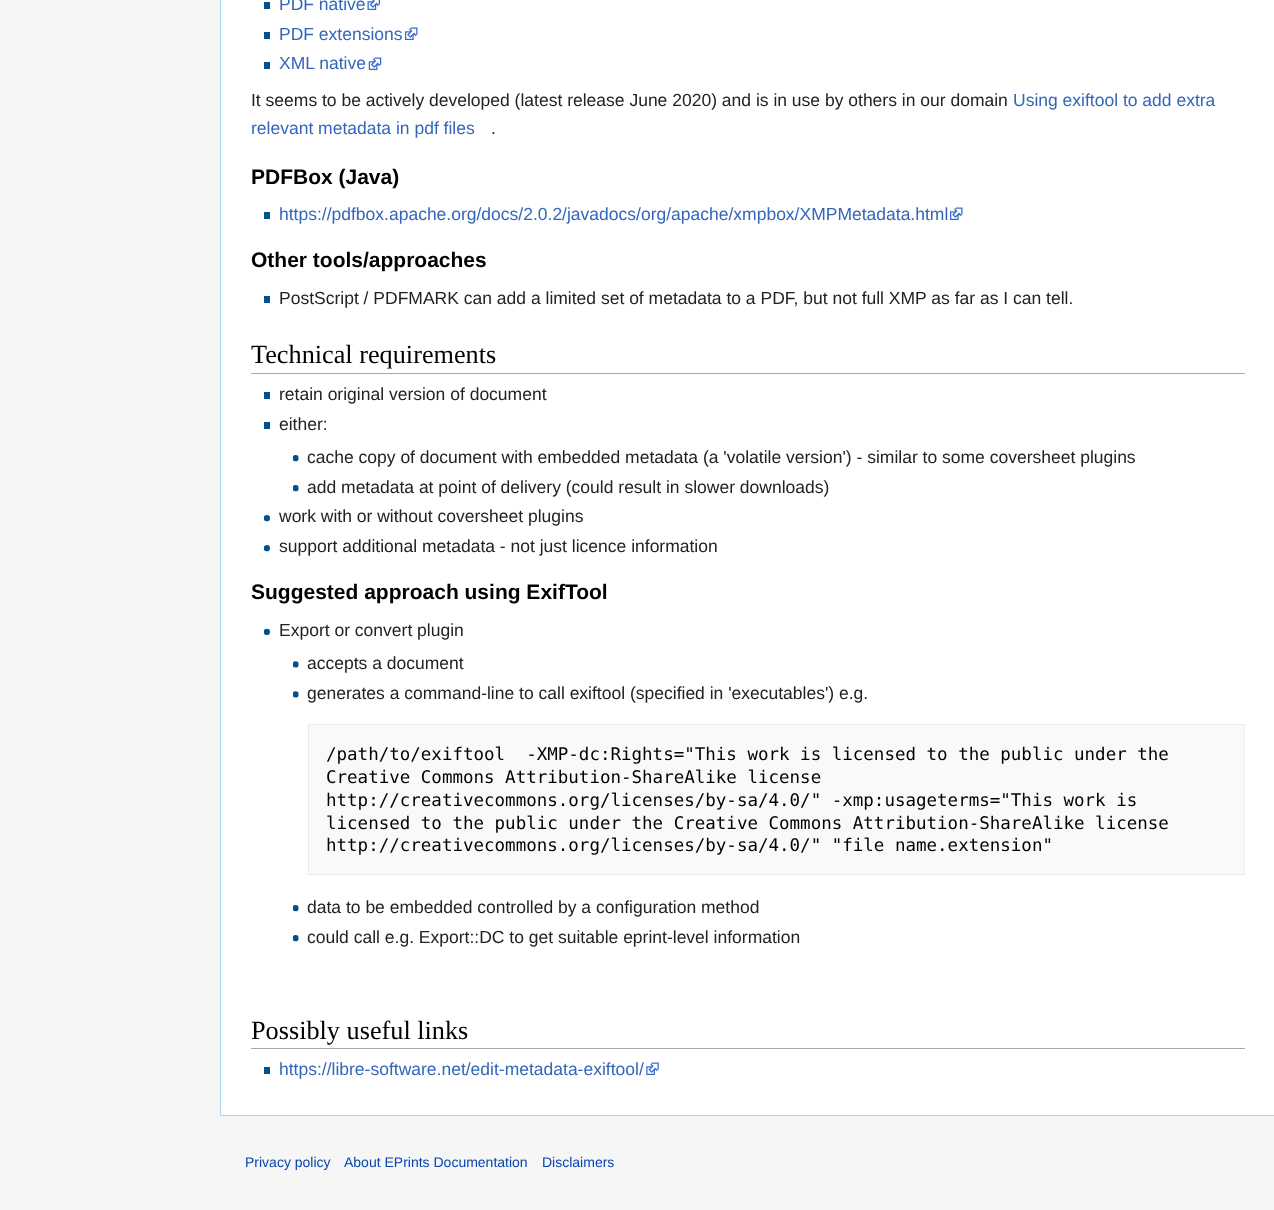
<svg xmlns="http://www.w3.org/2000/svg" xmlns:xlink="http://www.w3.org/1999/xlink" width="1274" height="1210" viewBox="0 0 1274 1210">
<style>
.cls-1{font:17.5px Liberation Sans;fill:#3366bb}
.cls-2{font:17.5px Liberation Sans;fill:#222222}
.cls-3{font:bold 21px Liberation Sans;fill:#000000}
.cls-4{font:26.25px Liberation Serif;fill:#000000}
.cls-5{font:17.5px DejaVu Sans Mono;fill:#000000}
.cls-6{font:14px Liberation Sans;fill:#0645ad}
</style>
<rect width="100%" height="100%" fill="#f6f6f6"/>
<rect fill="#ffffff" x="221" y="0" width="1053" height="1115"/>
<rect fill="#a7d7f9" x="220" y="1115" width="1054" height="1"/>
<rect fill="#a7d7f9" x="220" y="0" width="1" height="1116"/>
<rect fill="#00528c" x="264" y="2" width="6" height="7"/>
<image xlink:href="image0.png" x="367" y="0" width="13" height="10"/>
<rect fill="#00528c" x="264" y="32" width="6" height="7"/>
<image xlink:href="image1.png" x="405" y="27" width="13" height="13"/>
<rect fill="#00528c" x="264" y="62" width="6" height="7"/>
<image xlink:href="image2.png" x="368" y="57" width="14" height="13"/>
<rect fill="#00528c" x="264" y="212" width="6" height="7"/>
<image xlink:href="image1.png" x="950" y="207" width="13" height="13"/>
<rect fill="#00528c" x="264" y="296" width="6" height="7"/>
<rect fill="#a2a9b1" x="251" y="373" width="994" height="1"/>
<rect fill="#00528c" x="264" y="392" width="6" height="7"/>
<rect fill="#00528c" x="264" y="422" width="6" height="7"/>
<image xlink:href="image3.png" x="293" y="455" width="6" height="7"/>
<image xlink:href="image3.png" x="293" y="485" width="6" height="7"/>
<image xlink:href="image4.png" x="264" y="515" width="6" height="7"/>
<image xlink:href="image4.png" x="264" y="545" width="6" height="7"/>
<image xlink:href="image5.png" x="264" y="628" width="6" height="7"/>
<image xlink:href="image6.png" x="293" y="661" width="6" height="7"/>
<image xlink:href="image6.png" x="293" y="691" width="6" height="7"/>
<rect fill="#f8f9fa" stroke="#eaecf0" x="308.5" y="724.5" width="936" height="150"/>
<image xlink:href="image3.png" x="293" y="905" width="6" height="7"/>
<image xlink:href="image3.png" x="293" y="935" width="6" height="7"/>
<rect fill="#a2a9b1" x="251" y="1048" width="994" height="1"/>
<rect fill="#00528c" x="264" y="1067" width="6" height="7"/>
<image xlink:href="image7.png" x="646" y="1062" width="13" height="13"/>
<text class="cls-1"><tspan x="279" y="10">PDF native</tspan><tspan x="279" y="40">PDF extensions</tspan><tspan x="279" y="69">XML native</tspan></text>
<text class="cls-2" x="251" y="106">It seems to be actively developed (latest release June 2020) and is in use by others in our domain</text>
<text class="cls-1" x="1013" y="106">Using exiftool to add extra</text>
<text class="cls-1" x="251" y="134">relevant metadata in pdf files</text>
<text class="cls-2" x="491" y="134">.</text>
<text class="cls-3" x="251" y="184">PDFBox (Java)</text>
<text class="cls-1" x="279" y="220">https://pdfbox.apache.org/docs/2.0.2/javadocs/org/apache/xmpbox/XMPMetadata.html</text>
<text class="cls-3" x="251" y="267">Other tools/approaches</text>
<text class="cls-2" x="279" y="304">PostScript / PDFMARK can add a limited set of metadata to a PDF, but not full XMP as far as I can tell.</text>
<text class="cls-4" x="251" y="363">Technical requirements</text>
<text class="cls-2"><tspan x="279" y="400">retain original version of document</tspan><tspan x="279" y="430">either:</tspan></text>
<text class="cls-2"><tspan x="307" y="463">cache copy of document with embedded metadata (a 'volatile version') - similar to some coversheet plugins</tspan><tspan x="307" y="493">add metadata at point of delivery (could result in slower downloads)</tspan></text>
<text class="cls-2"><tspan x="279" y="522">work with or without coversheet plugins</tspan><tspan x="279" y="552">support additional metadata - not just licence information</tspan></text>
<text class="cls-3" x="251" y="599">Suggested approach using ExifTool</text>
<text class="cls-2" x="279" y="636">Export or convert plugin</text>
<text class="cls-2"><tspan x="307" y="669">accepts a document</tspan><tspan x="307" y="699">generates a command-line to call exiftool (specified in 'executables') e.g.</tspan></text>
<text class="cls-5" xml:space="preserve"><tspan x="326" y="760">/path/to/exiftool  -XMP-dc:Rights="This work is licensed to the public under the</tspan><tspan x="326" y="783">Creative Commons Attribution-ShareAlike license</tspan><tspan x="326" y="806">http://creativecommons.org/licenses/by-sa/4.0/" -xmp:usageterms="This work is</tspan><tspan x="326" y="829">licensed to the public under the Creative Commons Attribution-ShareAlike license</tspan><tspan x="326" y="851">http://creativecommons.org/licenses/by-sa/4.0/" "file name.extension"</tspan></text>
<text class="cls-2"><tspan x="307" y="913">data to be embedded controlled by a configuration method</tspan><tspan x="307" y="943">could call e.g. Export::DC to get suitable eprint-level information</tspan></text>
<text class="cls-4" x="251" y="1039">Possibly useful links</text>
<text class="cls-1" x="279" y="1075">https://libre-software.net/edit-metadata-exiftool/</text>
<text class="cls-6" x="245" y="1167">Privacy policy</text>
<text class="cls-6" x="344" y="1167">About EPrints Documentation</text>
<text class="cls-6" x="542" y="1167">Disclaimers</text>
</svg>
